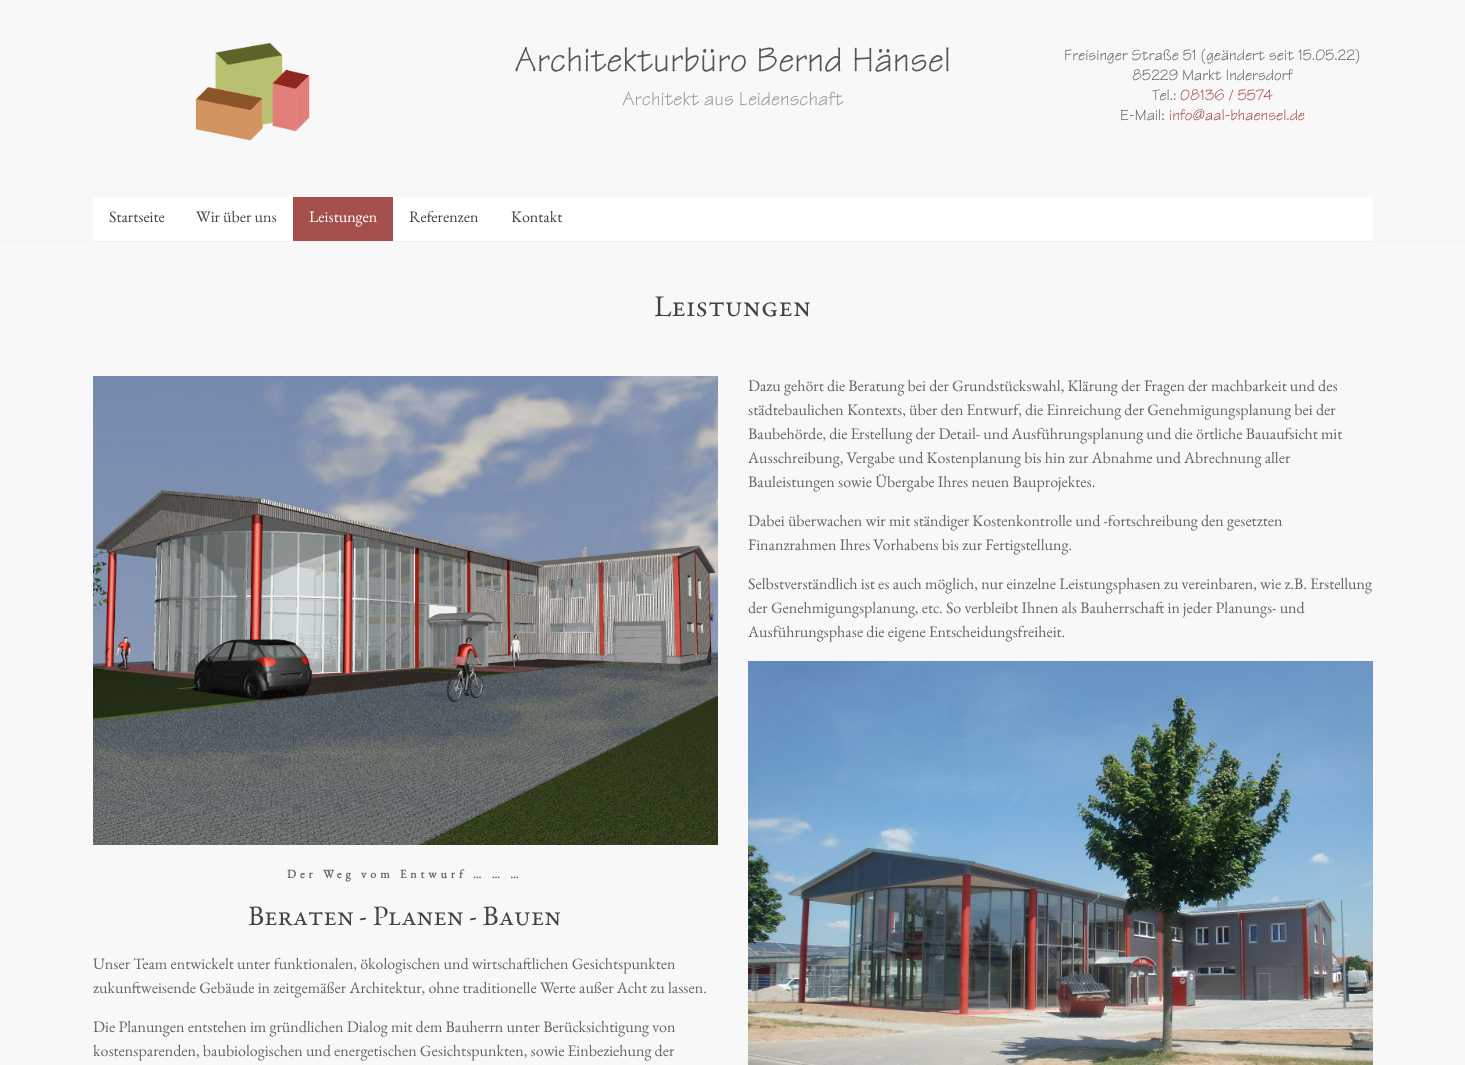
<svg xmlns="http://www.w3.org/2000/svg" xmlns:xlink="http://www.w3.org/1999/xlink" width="1465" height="1065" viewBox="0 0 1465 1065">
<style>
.cls-1{font:36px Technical;fill:#555555}
.cls-2{font:20px Technical;fill:#999999}
.cls-3{font:16px Technical;fill:#666666}
.cls-4{font:16px Technical;fill:#a5504c}
.cls-5{font:16px EB Garamond;fill:#444444}
.cls-6{font:16px EB Garamond;fill:#ffffff}
.cls-7{font:30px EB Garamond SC;fill:#444444}
.cls-8{font:16px EB Garamond;fill:#666666}
.cls-9{font:bold 12px EB Garamond;letter-spacing:4px;fill:#666666}
.cls-10{font:28px EB Garamond SC;fill:#444444}
</style>
<rect width="100%" height="100%" fill="#f8f8f8"/>
<rect fill="#f2f2f2" x="0" y="241" width="1465" height="1"/>
<image xlink:href="image0.png" x="195" y="43" width="115" height="98"/>
<rect fill="#ffffff" x="93" y="197" width="1280" height="44"/>
<rect fill="#a5504c" x="293" y="197" width="100" height="44"/>
<image xlink:href="image1.png" x="748" y="661" width="625" height="404"/>
<image xlink:href="image2.png" x="93" y="376" width="625" height="469"/>
<text class="cls-1" x="514" y="71">Architekturbüro Bernd Hänsel</text>
<text class="cls-2" x="622" y="105">Architekt aus Leidenschaft</text>
<text class="cls-3" x="1064" y="60">Freisinger Straße 51 (geändert seit 15.05.22)</text>
<text class="cls-3" x="1132" y="80">85229 Markt Indersdorf</text>
<text class="cls-3" x="1152" y="100">Tel.:</text>
<text class="cls-4" x="1180" y="100">08136 / 5574</text>
<text class="cls-3" x="1120" y="120">E-Mail:</text>
<text class="cls-4" x="1169" y="120">info@aal-bhaensel.de</text>
<text class="cls-5" x="109" y="222">Startseite</text>
<text class="cls-5" x="196" y="222">Wir über uns</text>
<text class="cls-6" x="309" y="222">Leistungen</text>
<text class="cls-5" x="409" y="222">Referenzen</text>
<text class="cls-5" x="511" y="222">Kontakt</text>
<text class="cls-7" x="654" y="316">Leistungen</text>
<text class="cls-8"><tspan x="748" y="391">Dazu gehört die Beratung bei der Grundstückswahl, Klärung der Fragen der machbarkeit und des</tspan><tspan x="748" y="415">städtebaulichen Kontexts, über den Entwurf, die Einreichung der Genehmigungsplanung bei der</tspan><tspan x="748" y="439">Baubehörde, die Erstellung der Detail- und Ausführungsplanung und die örtliche Bauaufsicht mit</tspan><tspan x="748" y="463">Ausschreibung, Vergabe und Kostenplanung bis hin zur Abnahme und Abrechnung aller</tspan><tspan x="748" y="487">Bauleistungen sowie Übergabe Ihres neuen Bauprojektes.</tspan></text>
<text class="cls-8"><tspan x="748" y="526">Dabei überwachen wir mit ständiger Kostenkontrolle und -fortschreibung den gesetzten</tspan><tspan x="748" y="550">Finanzrahmen Ihres Vorhabens bis zur Fertigstellung.</tspan></text>
<text class="cls-8"><tspan x="748" y="589">Selbstverständlich ist es auch möglich, nur einzelne Leistungsphasen zu vereinbaren, wie z.B. Erstellung</tspan><tspan x="748" y="613">der Genehmigungsplanung, etc. So verbleibt Ihnen als Bauherrschaft in jeder Planungs- und</tspan><tspan x="748" y="637">Ausführungsphase die eigene Entscheidungsfreiheit.</tspan></text>
<text class="cls-9" x="287" y="878">Der Weg vom Entwurf … … …</text>
<text class="cls-10" x="248" y="925">Beraten - Planen - Bauen</text>
<text class="cls-8"><tspan x="93" y="969">Unser Team entwickelt unter funktionalen, ökologischen und wirtschaftlichen Gesichtspunkten</tspan><tspan x="93" y="993">zukunftweisende Gebäude in zeitgemäßer Architektur, ohne traditionelle Werte außer Acht zu lassen.</tspan></text>
<text class="cls-8"><tspan x="93" y="1032">Die Planungen entstehen im gründlichen Dialog mit dem Bauherrn unter Berücksichtigung von</tspan><tspan x="93" y="1056">kostensparenden, baubiologischen und energetischen Gesichtspunkten, sowie Einbeziehung der</tspan></text>
</svg>
